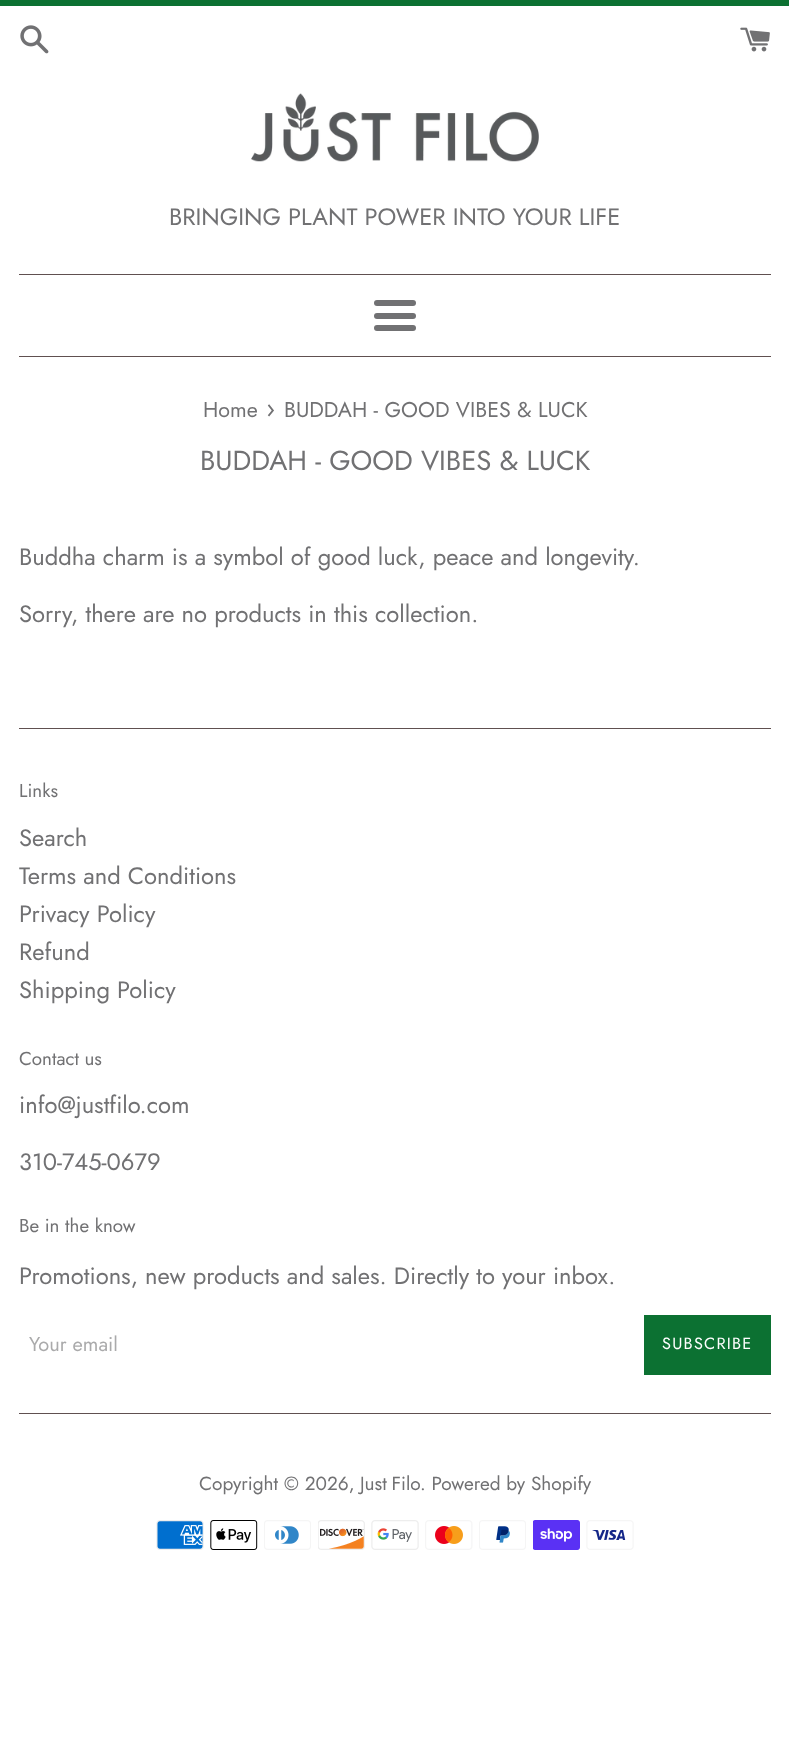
<svg xmlns="http://www.w3.org/2000/svg" xmlns:xlink="http://www.w3.org/1999/xlink" width="789" height="1747" viewBox="0 0 789 1747">
<style>
.cls-1{font:23.75px Jost;fill:#717173}
.cls-2{font:21.4px Jost;fill:#717173}
.cls-3{font:26px Jost;fill:#717173}
.cls-4{font:27.5px Jost;fill:#717173}
.cls-5{font:18.75px Jost;fill:#717173}
.cls-6{font:20px Jost;fill:#aaaaab}
.cls-7{font:16.25px Jost;letter-spacing:1.25px;fill:#ffffff}
.cls-8{font:19px Jost;fill:#717173}
</style>
<rect width="100%" height="100%" fill="#ffffff"/>
<rect fill="#0c7132" x="0" y="0" width="789" height="6"/>
<image xlink:href="image0.png" x="20" y="25" width="29" height="29"/>
<image xlink:href="image1.png" x="740" y="27" width="30" height="25"/>
<image xlink:href="image2.png" x="251" y="93" width="288" height="69"/>
<rect fill="#605050" x="19" y="274" width="752" height="1"/>
<rect fill="#717173" x="374" y="300" width="42" height="6" rx="3"/>
<rect fill="#717173" x="374" y="313" width="42" height="6" rx="3"/>
<rect fill="#717173" x="374" y="325" width="42" height="6" rx="3"/>
<rect fill="#605050" x="19" y="356" width="752" height="1"/>
<rect fill="#605050" x="19" y="728" width="752" height="1"/>
<rect fill="#0c7132" x="644" y="1315" width="127" height="60"/>
<rect fill="#605050" x="19" y="1413" width="752" height="1"/>
<image xlink:href="image3.png" x="156" y="1520" width="48" height="30"/>
<image xlink:href="image4.png" x="210" y="1520" width="48" height="30"/>
<image xlink:href="image5.png" x="264" y="1520" width="47" height="30"/>
<image xlink:href="image6.png" x="318" y="1520" width="47" height="30"/>
<image xlink:href="image7.png" x="371" y="1520" width="48" height="30"/>
<image xlink:href="image8.png" x="425" y="1520" width="48" height="30"/>
<image xlink:href="image9.png" x="479" y="1520" width="47" height="30"/>
<image xlink:href="image10.png" x="533" y="1520" width="47" height="30"/>
<image xlink:href="image11.png" x="586" y="1520" width="48" height="30"/>
<text class="cls-1" x="169" y="225">BRINGING PLANT POWER INTO YOUR LIFE</text>
<text class="cls-2" x="203" y="417">Home</text>
<text class="cls-3" x="266" y="417">›</text>
<text class="cls-2" x="284" y="417">BUDDAH - GOOD VIBES &amp; LUCK</text>
<text class="cls-4" x="200" y="470">BUDDAH - GOOD VIBES &amp; LUCK</text>
<text class="cls-1" x="19" y="565">Buddha charm is a symbol of good luck, peace and longevity.</text>
<text class="cls-1" x="19" y="622">Sorry, there are no products in this collection.</text>
<text class="cls-5" x="19" y="797">Links</text>
<text class="cls-1"><tspan x="19" y="846">Search</tspan><tspan x="19" y="884">Terms and Conditions</tspan><tspan x="19" y="922">Privacy Policy</tspan><tspan x="19" y="960">Refund</tspan><tspan x="19" y="998">Shipping Policy</tspan></text>
<text class="cls-5" x="19" y="1065">Contact us</text>
<text class="cls-1" x="19" y="1113">info@justfilo.com</text>
<text class="cls-1" x="19" y="1170">310-745-0679</text>
<text class="cls-5" x="19" y="1232">Be in the know</text>
<text class="cls-1" x="19" y="1284">Promotions, new products and sales. Directly to your inbox.</text>
<text class="cls-6" x="29" y="1351">Your email</text>
<text class="cls-7" x="662" y="1349">SUBSCRIBE</text>
<text class="cls-8" x="199" y="1490">Copyright © 2026,</text>
<text class="cls-8" x="360" y="1490" word-spacing="-1">Just Filo</text>
<text class="cls-8" x="420" y="1490">. Powered by Shopify</text>
</svg>
